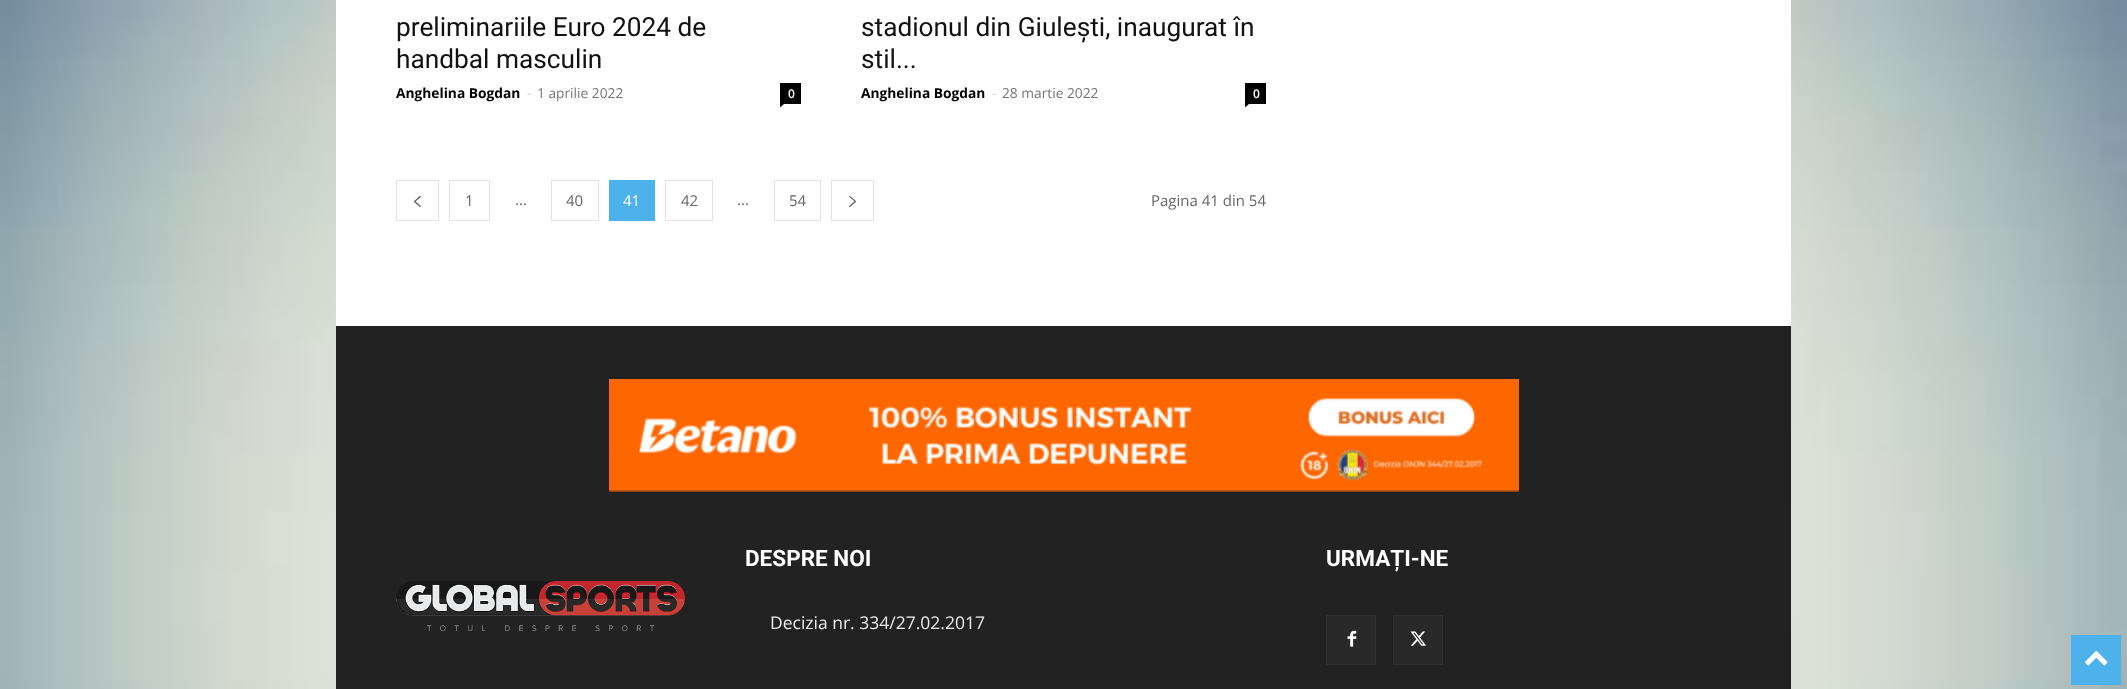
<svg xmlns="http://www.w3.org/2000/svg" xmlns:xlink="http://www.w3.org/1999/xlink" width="2127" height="689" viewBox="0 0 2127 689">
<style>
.cls-1{font:26.25px Roboto;fill:#111111}
.cls-2{font:bold 13.75px Open Sans;fill:#000000}
.cls-3{font:13.75px Open Sans;fill:#cccccc}
.cls-4{font:13.75px Open Sans;fill:#767676}
.cls-5{font:600 12px Open Sans;fill:#ffffff}
.cls-6{font:15px Open Sans;fill:#666666}
.cls-7{font:15px Open Sans;fill:#ffffff}
.cls-8{font:bold 22.5px Roboto;fill:#ffffff}
.cls-9{font:17.5px Open Sans;fill:#eaeaea}
</style>
<rect width="100%" height="100%" fill="#ffffff"/>
<image xlink:href="image0.png" x="0" y="0" width="2127" height="689"/>
<rect fill="#ffffff" x="336" y="0" width="1455" height="326"/>
<rect fill="#000000" x="780" y="83" width="21" height="21"/>
<path fill="#000000" d="M780 104H784L780 107.5Z"/>
<rect fill="#000000" x="1245" y="83" width="21" height="21"/>
<path fill="#000000" d="M1245 104H1249L1245 107.5Z"/>
<rect fill="none" stroke="#e3e3e3" x="396.5" y="180.5" width="42" height="40"/>
<image xlink:href="image1.png" x="413" y="195" width="8" height="12"/>
<rect fill="none" stroke="#e3e3e3" x="449.5" y="180.5" width="40" height="40"/>
<rect fill="none" stroke="#e3e3e3" x="551.5" y="180.5" width="47" height="40"/>
<rect fill="#4db2ec" x="609" y="180" width="46" height="41"/>
<rect fill="none" stroke="#e3e3e3" x="665.5" y="180.5" width="47" height="40"/>
<rect fill="none" stroke="#e3e3e3" x="774.5" y="180.5" width="46" height="40"/>
<rect fill="none" stroke="#e3e3e3" x="831.5" y="180.5" width="42" height="40"/>
<image xlink:href="image2.png" x="849" y="196" width="8" height="11"/>
<rect fill="#222222" x="336" y="326" width="1455" height="363"/>
<image xlink:href="image3.png" x="609" y="379" width="910" height="113"/>
<rect fill="#292929" x="1327" y="616" width="48" height="48"/>
<image xlink:href="image4.png" x="1347" y="630" width="10" height="17"/>
<rect fill="none" stroke="#2f2f2f" x="1326.5" y="615.5" width="49" height="49"/>
<rect fill="#292929" x="1394" y="616" width="48" height="48"/>
<image xlink:href="image5.png" x="1410" y="631" width="16" height="15"/>
<rect fill="none" stroke="#2f2f2f" x="1393.5" y="615.5" width="49" height="49"/>
<image xlink:href="image6.png" x="396" y="581" width="289" height="50"/>
<rect fill="#4db2ec" x="2071" y="635" width="50" height="50"/>
<image xlink:href="image7.png" x="2085" y="651" width="23" height="15"/>
<text class="cls-1"><tspan x="396" y="36">preliminariile Euro 2024 de</tspan><tspan x="396" y="68">handbal masculin</tspan></text>
<text class="cls-2" x="396" y="98">Anghelina Bogdan</text>
<text class="cls-3" x="527" y="98">-</text>
<text class="cls-4" x="537" y="98">1 aprilie 2022</text>
<text class="cls-5" x="788" y="98">0</text>
<text class="cls-1"><tspan x="861" y="36">stadionul din Giulești, inaugurat în</tspan><tspan x="861" y="68">stil...</tspan></text>
<text class="cls-2" x="861" y="98">Anghelina Bogdan</text>
<text class="cls-3" x="992" y="98">-</text>
<text class="cls-4" x="1002" y="98">28 martie 2022</text>
<text class="cls-5" x="1253" y="98">0</text>
<text class="cls-6" x="465" y="206">1</text>
<text class="cls-6" x="515" y="205">...</text>
<text class="cls-6" x="566" y="206">40</text>
<text class="cls-7" x="623" y="206">41</text>
<text class="cls-6" x="681" y="206">42</text>
<text class="cls-6" x="737" y="205">...</text>
<text class="cls-6" x="789" y="206">54</text>
<text class="cls-6" x="1151" y="206">Pagina 41 din 54</text>
<text class="cls-8" x="745" y="566">DESPRE NOI</text>
<text class="cls-9" x="770" y="629">Decizia nr. 334/27.02.2017</text>
<text class="cls-8" x="1326" y="566">URMAȚI-NE</text>
</svg>
